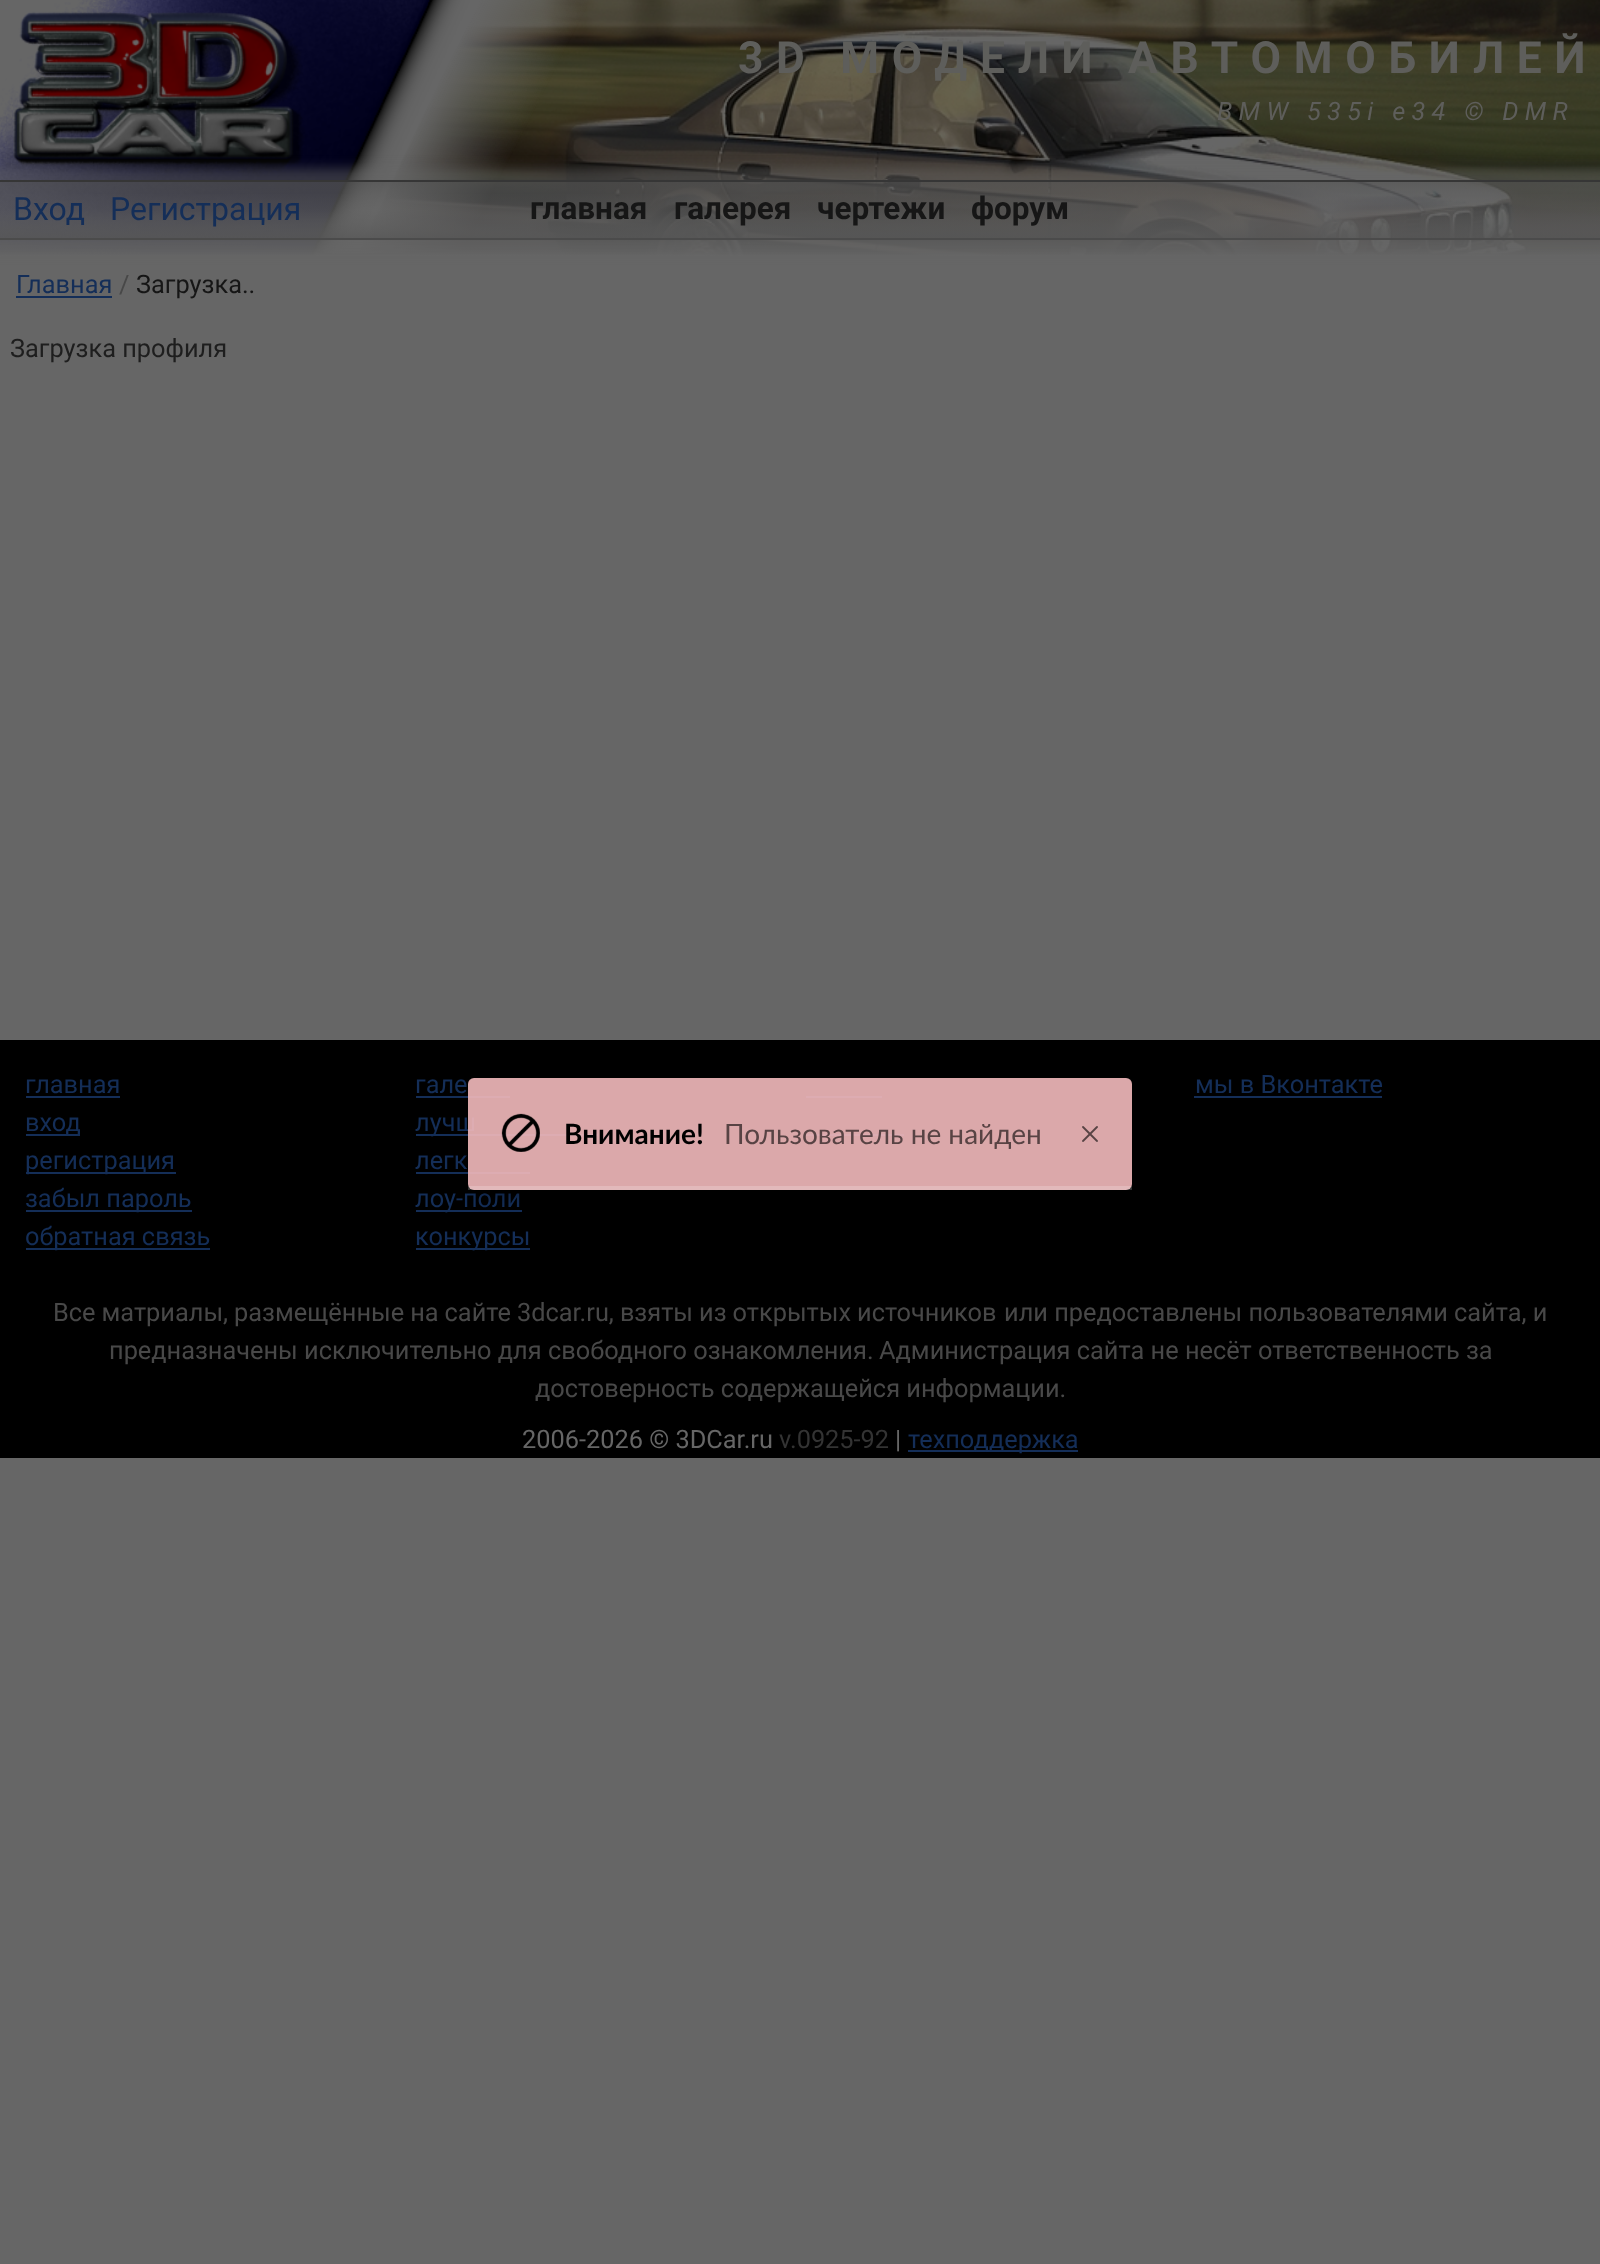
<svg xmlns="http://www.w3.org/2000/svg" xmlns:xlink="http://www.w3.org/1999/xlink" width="1600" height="2264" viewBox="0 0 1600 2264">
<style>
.cls-1{font:bold 44.3px Roboto;letter-spacing:12.7px;fill:#5e5e5b}
.cls-2{font:italic 25.35px Roboto;letter-spacing:6.3px;fill:#5e5e5b}
.cls-3{font:32px Roboto;fill:#142e58}
.cls-4{font:bold 31.5px Roboto;fill:#161616}
.cls-5{font:25.35px Roboto;fill:#142e58}
.cls-6{font:25.35px Roboto;fill:#484848}
.cls-7{font:25.35px Roboto;fill:#161616}
.cls-8{font:25.35px Roboto;fill:#1e1e1e}
.cls-9{font:25.35px Roboto;fill:#666666}
.cls-10{font:25.35px Roboto;fill:#333333}
.cls-11{font:bold 28px Lato;fill:#000000}
.cls-12{font:28px Lato;fill:#584344}
</style>
<defs>
<linearGradient id="g1" gradientUnits="userSpaceOnUse" x1="800" y1="192" x2="800" y2="272"><stop offset="0" stop-color="#666666" stop-opacity="0"/><stop offset="0.8" stop-color="#666666"/><stop offset="1" stop-color="#666666"/></linearGradient>
<clipPath id="clip1"><path d="M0 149H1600V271H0ZM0 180H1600V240H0Z" clip-rule="evenodd"/></clipPath>
<linearGradient id="g2" gradientUnits="userSpaceOnUse" x1="800" y1="182" x2="800" y2="238"><stop offset="0" stop-color="#525252" stop-opacity="0.5"/><stop offset="0.5" stop-color="#666666" stop-opacity="0.2"/><stop offset="1" stop-color="#525252" stop-opacity="0.5"/></linearGradient>
<clipPath id="clip2"><path d="M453 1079H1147V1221H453ZM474 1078H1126C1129.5 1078 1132 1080.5 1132 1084V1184C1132 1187.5 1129.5 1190 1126 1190H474C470.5 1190 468 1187.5 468 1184V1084C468 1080.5 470.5 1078 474 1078Z" clip-rule="evenodd"/></clipPath>
</defs>
<rect width="100%" height="100%" fill="#666666"/>
<image xlink:href="image1.png" x="360" y="0" width="1240" height="256"/>
<image xlink:href="image0.png" x="0" y="0" width="587" height="256"/>
<rect fill="url(#g1)" x="0" y="194" width="1600" height="62"/>
<g clip-path="url(#clip1)">
<rect fill="#666666" fill-opacity="0.5" filter="blur(6px)" x="-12" y="168" width="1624" height="84"/>
</g>
<rect fill="#666666" fill-opacity="0.5" x="0" y="182" width="1600" height="56"/>
<rect fill="url(#g2)" x="0" y="182" width="1600" height="56"/>
<rect fill="#363636" x="0" y="180" width="1600" height="2"/>
<rect fill="#4b4b4b" x="0" y="238" width="1600" height="2"/>
<rect fill="#142e58" x="16" y="296" width="96" height="2"/>
<rect fill="#000000" x="0" y="1040" width="1600" height="418"/>
<rect fill="#142e58" x="26" y="1096" width="94" height="2"/>
<rect fill="#142e58" x="26" y="1134" width="54" height="2"/>
<rect fill="#142e58" x="26" y="1172" width="150" height="2"/>
<rect fill="#142e58" x="26" y="1210" width="166" height="2"/>
<rect fill="#142e58" x="26" y="1248" width="184" height="2"/>
<rect fill="#142e58" x="416" y="1096" width="94" height="2"/>
<rect fill="#142e58" x="416" y="1134" width="182" height="2"/>
<rect fill="#142e58" x="416" y="1172" width="114" height="2"/>
<rect fill="#142e58" x="416" y="1210" width="106" height="2"/>
<rect fill="#142e58" x="416" y="1248" width="114" height="2"/>
<rect fill="#142e58" x="806" y="1096" width="76" height="2"/>
<rect fill="#142e58" x="806" y="1134" width="98" height="2"/>
<rect fill="#142e58" x="1194" y="1096" width="188" height="2"/>
<rect fill="#142e58" x="908" y="1450" width="170" height="2"/>
<text class="cls-1" x="738" y="73" word-spacing="-1">3D МОДЕЛИ АВТОМОБИЛЕЙ</text>
<text class="cls-2" x="1217" y="120">BMW 535i e34 © DMR</text>
<text class="cls-3" x="13" y="220">Вход</text>
<text class="cls-3" x="110" y="220">Регистрация</text>
<text class="cls-4" x="530" y="219">главная</text>
<text class="cls-4" x="674" y="219">галерея</text>
<text class="cls-4" x="817" y="219">чертежи</text>
<text class="cls-4" x="971" y="219">форум</text>
<text class="cls-5" x="16" y="293">Главная</text>
<text class="cls-6" x="119" y="293">/</text>
<text class="cls-7" x="136" y="293">Загрузка..</text>
<text class="cls-8" x="10" y="357">Загрузка профиля</text>
<text class="cls-5"><tspan x="25" y="1093">главная</tspan><tspan x="25" y="1131">вход</tspan><tspan x="25" y="1169">регистрация</tspan><tspan x="25" y="1207">забыл пароль</tspan><tspan x="25" y="1245">обратная связь</tspan></text>
<text class="cls-5"><tspan x="415" y="1093">гале</tspan><tspan x="415" y="1131">лучш</tspan><tspan x="415" y="1169">легк</tspan><tspan x="415" y="1207">лоу-поли</tspan><tspan x="415" y="1245">конкурсы</tspan></text>
<text class="cls-5" x="1195" y="1093">мы в Вконтакте</text>
<text class="cls-6" x="53" y="1321" word-spacing="-0.25">Все матриалы, размещённые на сайте 3dcar.ru, взяты из открытых источников</text>
<text class="cls-6" x="1004" y="1321">или предоставлены пользователями сайта, и</text>
<text class="cls-6" x="109" y="1359">предназначены исключительно для свободного ознакомления.</text>
<text class="cls-6" x="879" y="1359">Администрация сайта не несёт ответственность за</text>
<text class="cls-6" x="535" y="1397">достоверность содержащейся информации.</text>
<text class="cls-9" x="522" y="1448">2006-2026 © 3DCar.ru</text>
<text class="cls-10" x="779" y="1448">v.0925-92</text>
<text class="cls-9" x="895" y="1448">|</text>
<text class="cls-5" x="908" y="1448">техподдержка</text>
<rect fill="#f3babd" fill-opacity="0.9" x="468" y="1078" width="664" height="112" rx="6"/>
<g clip-path="url(#clip2)">
<rect fill="#000000" fill-opacity="0.25" filter="blur(8px)" x="478" y="1104" width="644" height="92"/>
</g>
<image xlink:href="image2.png" x="501" y="1113" width="39" height="39"/>
<text class="cls-11" x="564" y="1144">Внимание!</text>
<text class="cls-12" x="724" y="1144">Пользователь не найден</text>
<image xlink:href="image3.png" x="1082" y="1126" width="16" height="16"/>
<rect fill="#ffffff" fill-opacity="0.2" x="468" y="1186" width="664" height="4"/>
</svg>
